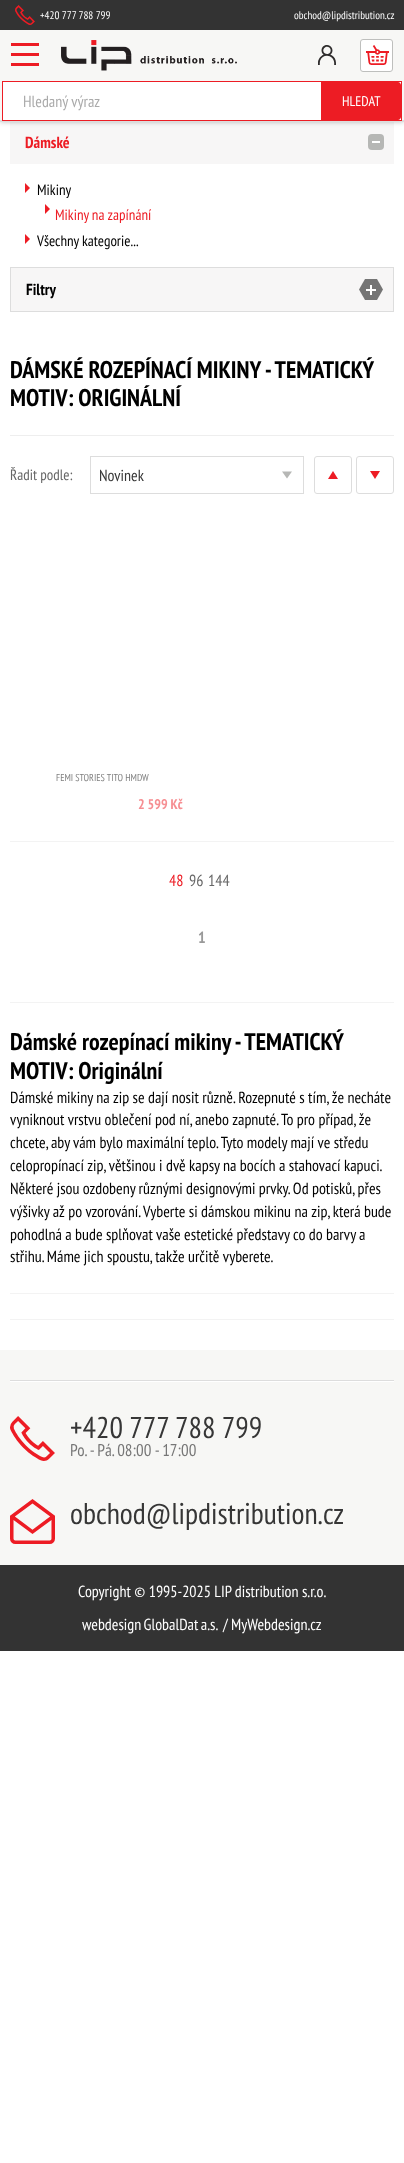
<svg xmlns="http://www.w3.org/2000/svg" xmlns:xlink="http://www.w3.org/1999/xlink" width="404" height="2163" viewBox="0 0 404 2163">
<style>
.cls-1{font:11px PT Sans Narrow;fill:#ffffff}
.cls-2{font:16px PT Sans Narrow;fill:#aaaaaa}
.cls-3{font:14px PT Sans Narrow;fill:#ffffff}
.cls-4{font:bold 16px PT Sans Narrow;fill:#ed1c24}
.cls-5{font:15px PT Sans Narrow;fill:#000000}
.cls-6{font:15px PT Sans Narrow;fill:#ed1c24}
.cls-7{font:bold 16px PT Sans Narrow;fill:#000000}
.cls-8{font:bold 24px PT Sans Narrow;fill:#000000}
.cls-9{font:15px PT Sans Narrow;fill:#666666}
.cls-10{font:16px PT Sans Narrow;fill:#363636}
.cls-11{font:10px PT Sans Narrow;fill:#808080}
.cls-12{font:bold 14px PT Sans Narrow;fill:#f68e92}
.cls-13{font:16px PT Sans Narrow;fill:#ed1c24}
.cls-14{font:16px PT Sans Narrow;fill:#666666}
.cls-15{font:bold 16px PT Sans Narrow;fill:#999999}
.cls-16{font:16px PT Sans Narrow;fill:#000000}
.cls-17{font:30px PT Sans Narrow;fill:#363636}
.cls-18{font:17px PT Sans Narrow;fill:#777777}
.cls-19{font:16px PT Sans Narrow;fill:#ffffff}
</style>
<rect width="100%" height="100%" fill="#ffffff"/>
<rect fill="#f7f6f6" x="10" y="122" width="384" height="42"/>
<rect fill="#000000" fill-opacity="0.25" filter="blur(2.5px)" x="0" y="0" width="404" height="122"/>
<rect fill="#333333" x="0" y="0" width="404" height="30"/>
<image xlink:href="image0.png" x="15" y="5" width="20" height="20"/>
<rect fill="#dddddd" x="0" y="120" width="404" height="2"/>
<rect fill="#f7f7f5" x="0" y="30" width="404" height="90"/>
<rect fill="#ed1c24" x="11" y="53" width="28" height="3"/>
<rect fill="#ed1c24" x="11" y="43" width="28" height="3"/>
<rect fill="#ed1c24" x="11" y="63" width="28" height="3"/>
<image xlink:href="image1.png" x="61" y="40" width="176" height="31"/>
<image xlink:href="image2.png" x="318" y="45" width="18" height="20"/>
<rect fill="#ffffff" stroke="#bebfbd" x="360.5" y="39.5" width="32" height="32" rx="2.5"/>
<image xlink:href="image3.png" x="366" y="45" width="23" height="20"/>
<rect fill="#ffffff" stroke="#ed1c24" x="2.5" y="81.5" width="399" height="39"/>
<path fill="#ed1c24" d="M321 82H398C399.5 82 401 83.5 401 85V117C401 118.5 399.5 120 398 120H321Z"/>
<image xlink:href="image4.png" x="368" y="134" width="16" height="16"/>
<path fill="#ed1c24" d="M25 193V183L30 188Z"/>
<path fill="#ed1c24" d="M45 214V204L50 209Z"/>
<path fill="#ed1c24" d="M25 244V234L30 239Z"/>
<rect fill="#f7f6f6" stroke="#dddddd" x="10.5" y="267.5" width="383" height="44"/>
<image xlink:href="image5.png" x="359" y="279" width="24" height="21"/>
<rect fill="#eeeeee" x="10" y="435" width="384" height="1"/>
<rect fill="none" stroke="#dddddd" x="90.5" y="456.5" width="213" height="37"/>
<path fill="#b6b7b5" d="M282 471.5H292L287 478.5Z"/>
<rect fill="none" stroke="#dddddd" x="314.5" y="456.5" width="37" height="37" rx="2.5"/>
<path fill="#ed1c24" d="M338 479H328L333 471Z"/>
<rect fill="none" stroke="#dddddd" x="356.5" y="456.5" width="37" height="37" rx="2.5"/>
<path fill="#ed1c24" d="M370 471H380L375 479Z"/>
<rect fill="#f3f3f3" x="10" y="841" width="384" height="1"/>
<rect fill="#f3f3f3" x="10" y="1002" width="384" height="1"/>
<rect fill="#f3f3f3" x="10" y="1293" width="384" height="1"/>
<rect fill="#f3f3f3" x="10" y="1319" width="384" height="1"/>
<rect fill="#f7f7f5" x="0" y="1350" width="404" height="215"/>
<rect fill="#ffffff" x="10" y="1381" width="384" height="1"/>
<rect fill="#dddddd" x="10" y="1380" width="384" height="1"/>
<image xlink:href="image6.png" x="10" y="1416" width="45" height="45"/>
<image xlink:href="image7.png" x="10" y="1499" width="45" height="45"/>
<rect fill="#333333" x="0" y="1565" width="404" height="86"/>
<text class="cls-1" x="40" y="19">+420 777 788 799</text>
<text class="cls-1" x="294" y="19">obchod@lipdistribution.cz</text>
<text class="cls-2" x="23" y="107">Hledaný výraz</text>
<text class="cls-3" x="342" y="106">HLEDAT</text>
<text class="cls-4" x="25" y="148">Dámské</text>
<text class="cls-5" x="37" y="195">Mikiny</text>
<text class="cls-6" x="55" y="220">Mikiny na zapínání</text>
<text class="cls-5" x="37" y="246">Všechny kategorie...</text>
<text class="cls-7" x="26" y="295">Filtry</text>
<text class="cls-8"><tspan x="10" y="378">DÁMSKÉ ROZEPÍNACÍ MIKINY - TEMATICKÝ</tspan><tspan x="10" y="406">MOTIV: ORIGINÁLNÍ</tspan></text>
<text class="cls-9" x="10" y="480">Řadit podle:</text>
<text class="cls-10" x="99" y="481">Novinek</text>
<text class="cls-11" x="56" y="781">FEMI STORIES TITO HMDW</text>
<text class="cls-12" x="138" y="809">2 599 Kč</text>
<text class="cls-13" x="169" y="886">48</text>
<text class="cls-14" x="189" y="886">96</text>
<text class="cls-14" x="208" y="886">144</text>
<text class="cls-15" x="198" y="943">1</text>
<text class="cls-8"><tspan x="10" y="1050">Dámské rozepínací mikiny - TEMATICKÝ</tspan><tspan x="10" y="1079">MOTIV: Originální</tspan></text>
<text class="cls-16"><tspan x="10" y="1103">Dámské mikiny na zip se dají nosit různě. Rozepnuté s tím, že necháte</tspan><tspan x="10" y="1125">vyniknout vrstvu oblečení pod ní, anebo zapnuté. To pro případ, že</tspan><tspan x="10" y="1148">chcete, aby vám bylo maximální teplo. Tyto modely mají ve středu</tspan><tspan x="10" y="1171">celopropínací zip, většinou i dvě kapsy na bocích a stahovací kapuci.</tspan><tspan x="10" y="1194">Některé jsou ozdobeny různými designovými prvky. Od potisků, přes</tspan><tspan x="10" y="1217">výšivky až po vzorování. Vyberte si dámskou mikinu na zip, která bude</tspan><tspan x="10" y="1240">pohodlná a bude splňovat vaše estetické představy co do barvy a</tspan><tspan x="10" y="1262">střihu. Máme jich spoustu, takže určitě vyberete.</tspan></text>
<text class="cls-17" x="70" y="1438">+420 777 788 799</text>
<text class="cls-18" x="70" y="1456">Po. - Pá. 08:00 - 17:00</text>
<text class="cls-17" x="70" y="1524">obchod@lipdistribution.cz</text>
<text class="cls-19" x="78" y="1597">Copyright © 1995-2025 LIP distribution s.r.o.</text>
<text class="cls-19" x="82" y="1630" word-spacing="-1">webdesign GlobalDat a.s.</text>
<text class="cls-19" x="223" y="1630">/ MyWebdesign.cz</text>
</svg>
